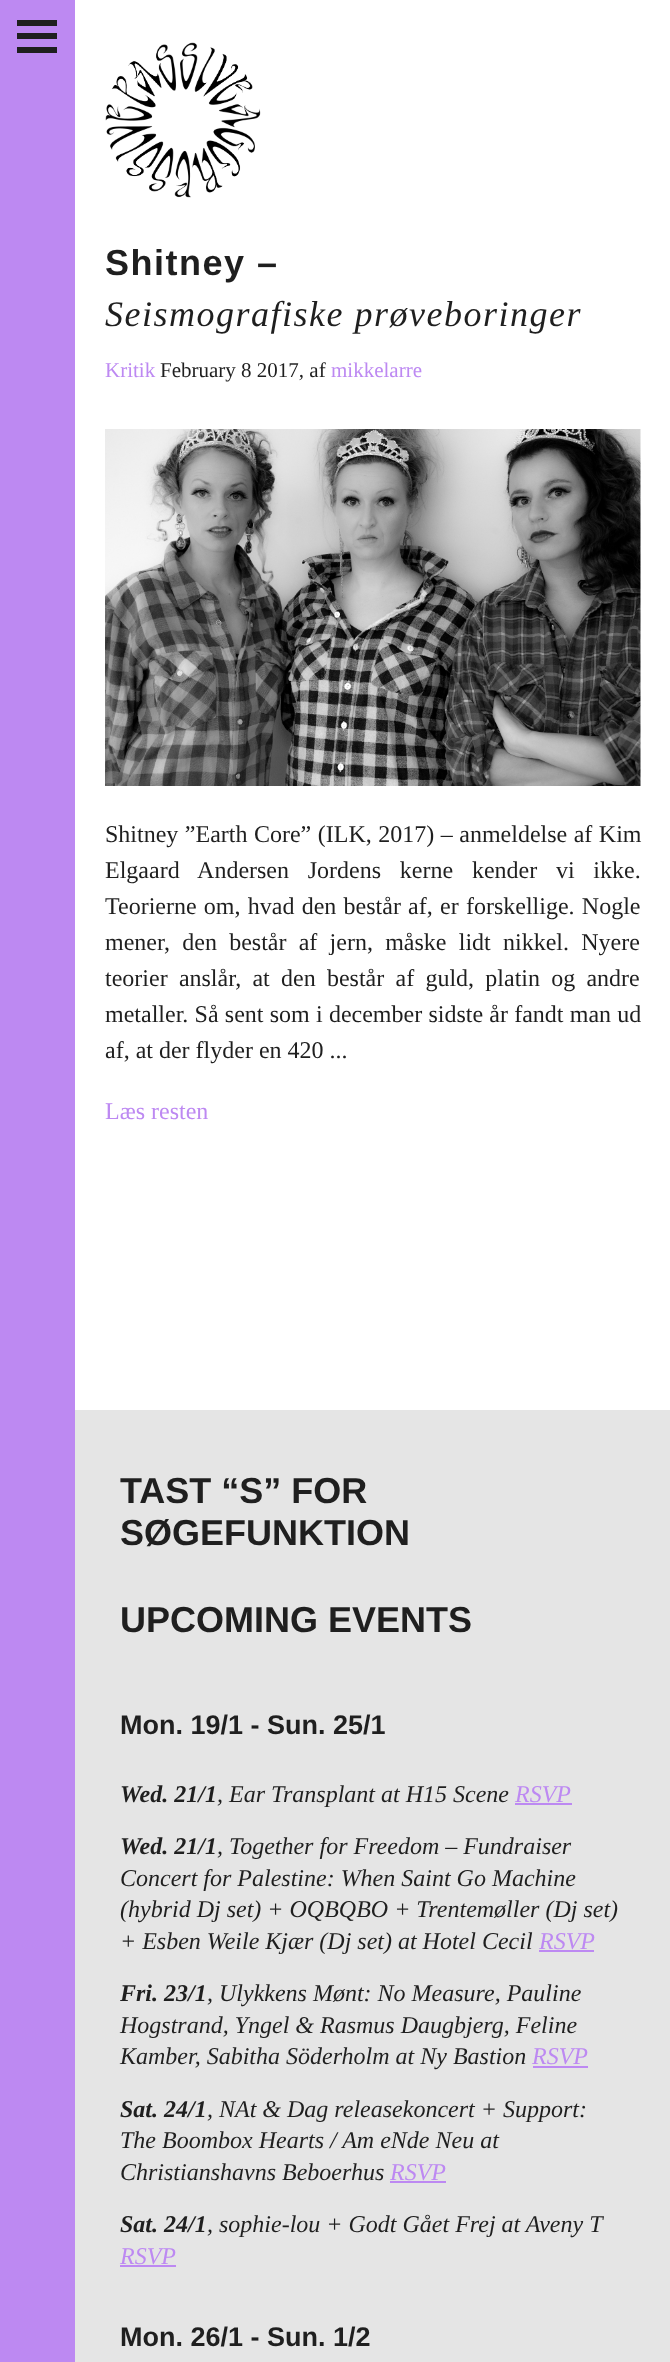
<svg xmlns="http://www.w3.org/2000/svg" xmlns:xlink="http://www.w3.org/1999/xlink" width="670" height="2362" viewBox="0 0 670 2362">
<style>
.cls-1{font:bold 36px Liberation Sans;letter-spacing:1.5px;fill:#1f1f1f}
.cls-2{font:italic 36px Liberation Serif;letter-spacing:1.5px;fill:#1f1f1f}
.cls-3{font:21px Liberation Serif;fill:#bd89f2}
.cls-4{font:21px Liberation Serif;fill:#1f1f1f}
.cls-5{font:24px Liberation Serif;fill:#1f1f1f}
.cls-6{font:24px Liberation Serif;fill:#bd89f2}
.cls-7{font:bold 36px Liberation Sans;fill:#1f1f1f}
.cls-8{font:bold 27px Liberation Sans;fill:#1f1f1f}
.cls-9{font:italic bold 24px Liberation Serif;fill:#1f1f1f}
.cls-10{font:italic 24px Liberation Serif;fill:#1f1f1f}
.cls-11{font:italic 24px Liberation Serif;fill:#bd89f2}
</style>
<rect width="100%" height="100%" fill="#ffffff"/>
<rect fill="#bd89f2" x="0" y="0" width="75" height="2362"/>
<rect fill="#1f1f1f" x="17" y="33" width="40" height="6"/>
<rect fill="#1f1f1f" x="17" y="20" width="40" height="6"/>
<rect fill="#1f1f1f" x="17" y="47" width="40" height="6"/>
<image xlink:href="image0.png" x="105" y="42" width="156" height="156"/>
<image xlink:href="image1.png" x="105" y="429" width="536" height="357"/>
<rect fill="#e5e5e5" x="75" y="1410" width="595" height="952"/>
<rect fill="#bd89f2" x="515" y="1803" width="57" height="2"/>
<rect fill="#bd89f2" x="539" y="1950" width="55" height="2"/>
<rect fill="#bd89f2" x="533" y="2066" width="55" height="2"/>
<rect fill="#bd89f2" x="390" y="2181" width="56" height="2"/>
<rect fill="#bd89f2" x="120" y="2265" width="56" height="2"/>
<text class="cls-1" x="105" y="275">Shitney –</text>
<text class="cls-2" x="105" y="326">Seismografiske prøveboringer</text>
<text class="cls-3" x="105" y="377">Kritik</text>
<text class="cls-4" x="160" y="377">February 8 2017, af</text>
<text class="cls-3" x="331" y="377">mikkelarre</text>
<text class="cls-5"><tspan x="105" y="842" word-spacing="0.5">Shitney ”Earth Core” (ILK, 2017) – anmeldelse af Kim</tspan><tspan x="105" y="878" word-spacing="12.75">Elgaard Andersen Jordens kerne kender vi ikke.</tspan><tspan x="105" y="914" word-spacing="1.25">Teorierne om, hvad den består af, er forskellige. Nogle</tspan><tspan x="105" y="950" word-spacing="6.25">mener, den består af jern, måske lidt nikkel. Nyere</tspan><tspan x="105" y="986" word-spacing="5.25">teorier anslår, at den består af guld, platin og andre</tspan><tspan x="105" y="1022" word-spacing="0.25">metaller. Så sent som i december sidste år fandt man ud</tspan><tspan x="105" y="1058">af, at der flyder en 420 ...</tspan></text>
<text class="cls-6" x="105" y="1119">Læs resten</text>
<text class="cls-7"><tspan x="120" y="1503">TAST “S” FOR</tspan><tspan x="120" y="1545">SØGEFUNKTION</tspan></text>
<text class="cls-7" x="120" y="1632">UPCOMING EVENTS</text>
<text class="cls-8" x="120" y="1734">Mon. 19/1 - Sun. 25/1</text>
<text class="cls-9" x="120" y="1802">Wed. 21/1</text>
<text class="cls-10" x="217" y="1802">, Ear Transplant at H15 Scene</text>
<text class="cls-11" x="515" y="1802">RSVP</text>
<text class="cls-9" x="120" y="1854">Wed. 21/1</text>
<text class="cls-10" x="217" y="1854">, Together for Freedom – Fundraiser</text>
<text class="cls-10"><tspan x="120" y="1886">Concert for Palestine: ‍When Saint Go Machine</tspan><tspan x="120" y="1917">(hybrid Dj set) + OQBQBO + Trentemøller (Dj set)</tspan><tspan x="120" y="1949">+ Esben Weile Kjær (Dj set) at Hotel Cecil</tspan></text>
<text class="cls-11" x="539" y="1949">RSVP</text>
<text class="cls-9" x="120" y="2001">Fri. 23/1</text>
<text class="cls-10" x="207" y="2001">, Ulykkens Mønt: No Measure, Pauline</text>
<text class="cls-10"><tspan x="120" y="2033">Hogstrand, Yngel &amp; Rasmus Daugbjerg, Feline</tspan><tspan x="120" y="2064">Kamber, Sabitha Söderholm at Ny Bastion</tspan></text>
<text class="cls-11" x="532" y="2064">RSVP</text>
<text class="cls-9" x="120" y="2117">Sat. 24/1</text>
<text class="cls-10" x="207" y="2117">, NAt &amp; Dag releasekoncert + Support:</text>
<text class="cls-10"><tspan x="120" y="2148">The Boombox Hearts / Am eNde Neu at</tspan><tspan x="120" y="2180">Christianshavns Beboerhus</tspan></text>
<text class="cls-11" x="390" y="2180">RSVP</text>
<text class="cls-9" x="120" y="2232">Sat. 24/1</text>
<text class="cls-10" x="207" y="2232">, sophie-lou + Godt Gået Frej at Aveny T</text>
<text class="cls-11" x="120" y="2264">RSVP</text>
<text class="cls-8" x="120" y="2346">Mon. 26/1 - Sun. 1/2</text>
</svg>
